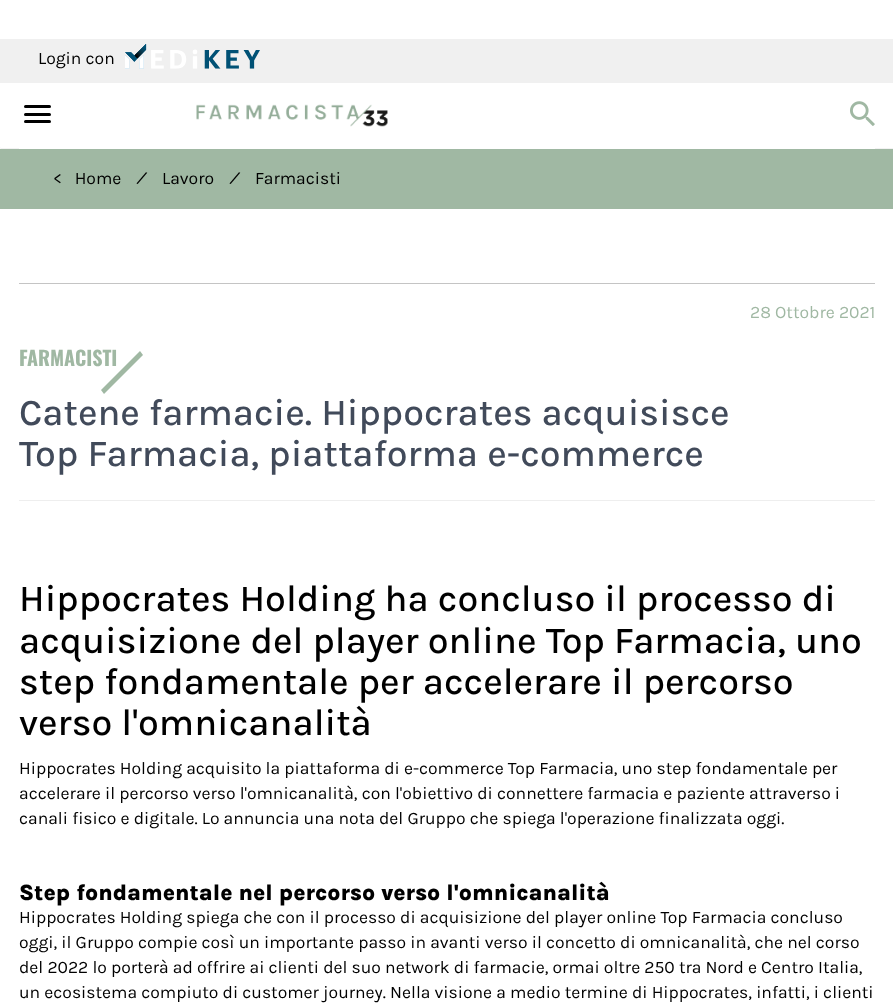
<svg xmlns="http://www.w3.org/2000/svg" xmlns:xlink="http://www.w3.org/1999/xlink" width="893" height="1003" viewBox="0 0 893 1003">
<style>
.cls-1{font:17.5px Karla;fill:#000000}
.cls-2{font:17.5px Karla;fill:#a0b8a3}
.cls-3{font:bold 20px Oswald;fill:#a0b8a3}
.cls-4{font:500 37.5px Karla;fill:#414a5a}
.cls-5{font:500 37.5px Karla;fill:#000000}
.cls-6{font:800 22.5px Karla;fill:#000000}
</style>
<rect width="100%" height="100%" fill="#ffffff"/>
<rect fill="#f0f0f0" x="0" y="39" width="893" height="44"/>
<image xlink:href="image0.png" x="125" y="44" width="135" height="25"/>
<rect fill="#000000" x="24" y="105" width="27" height="3" rx="1.5"/>
<rect fill="#000000" x="24" y="113" width="27" height="3" rx="1.5"/>
<rect fill="#000000" x="24" y="120" width="27" height="3" rx="1.5"/>
<image xlink:href="image1.png" x="196" y="104" width="192" height="23"/>
<image xlink:href="image2.png" x="850" y="101" width="25" height="25"/>
<rect fill="#a0b8a3" x="0" y="149" width="893" height="60"/>
<rect fill="#000000" fill-opacity="0.05" filter="blur(0.5px)" x="0" y="146" width="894" height="3" rx="1.5"/>
<rect fill="#ffffff" x="0" y="145" width="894" height="3" rx="1.5"/>
<rect fill="#ffffff" x="19" y="148" width="856" height="1"/>
<rect fill="#c4c4c4" x="19" y="283" width="856" height="1"/>
<path fill="#a0b8a3" d="M104 394L101 390L140 351L143 355Z"/>
<rect fill="#eeeeee" x="19" y="500" width="856" height="1"/>
<text class="cls-1" x="38" y="64">Login con</text>
<text class="cls-1" xml:space="preserve" x="53" y="184">&lt;   Home</text>
<text class="cls-1" x="136" y="182" transform="rotate(23 136 182)">/</text>
<text class="cls-1" x="162" y="184">Lavoro</text>
<text class="cls-1" x="229" y="182" transform="rotate(23 229 182)">/</text>
<text class="cls-1" x="255" y="184">Farmacisti</text>
<text class="cls-2" x="750" y="318">28 Ottobre 2021</text>
<text class="cls-3" x="19" y="366">FARMACISTI</text>
<text class="cls-4"><tspan x="19" y="425">Catene farmacie. Hippocrates acquisisce</tspan><tspan x="19" y="466">Top Farmacia, piattaforma e-commerce</tspan></text>
<text class="cls-5"><tspan x="19" y="611">Hippocrates Holding ha concluso il processo di</tspan><tspan x="19" y="653">acquisizione del player online Top Farmacia, uno</tspan><tspan x="19" y="694">step fondamentale per accelerare il percorso</tspan><tspan x="19" y="735">verso l'omnicanalità</tspan></text>
<text class="cls-1"><tspan x="19" y="774">Hippocrates Holding acquisito la piattaforma di e-commerce Top Farmacia, uno step fondamentale per</tspan><tspan x="19" y="799">accelerare il percorso verso l'omnicanalità, con l'obiettivo di connettere farmacia e paziente attraverso i</tspan><tspan x="19" y="824">canali fisico e digitale. Lo annuncia una nota del Gruppo che spiega l'operazione finalizzata oggi.</tspan></text>
<text class="cls-6" x="19" y="900">Step fondamentale nel percorso verso l'omnicanalità</text>
<text class="cls-1"><tspan x="19" y="923">Hippocrates Holding spiega che con il processo di acquisizione del player online Top Farmacia concluso</tspan><tspan x="19" y="948">oggi, il Gruppo compie così un importante passo in avanti verso il concetto di omnicanalità, che nel corso</tspan><tspan x="19" y="973">del 2022 lo porterà ad offrire ai clienti del suo network di farmacie, ormai oltre 250 tra Nord e Centro Italia,</tspan><tspan x="19" y="998">un ecosistema compiuto di customer journey. Nella visione a medio termine di Hippocrates, infatti, i clienti</tspan></text>
</svg>
